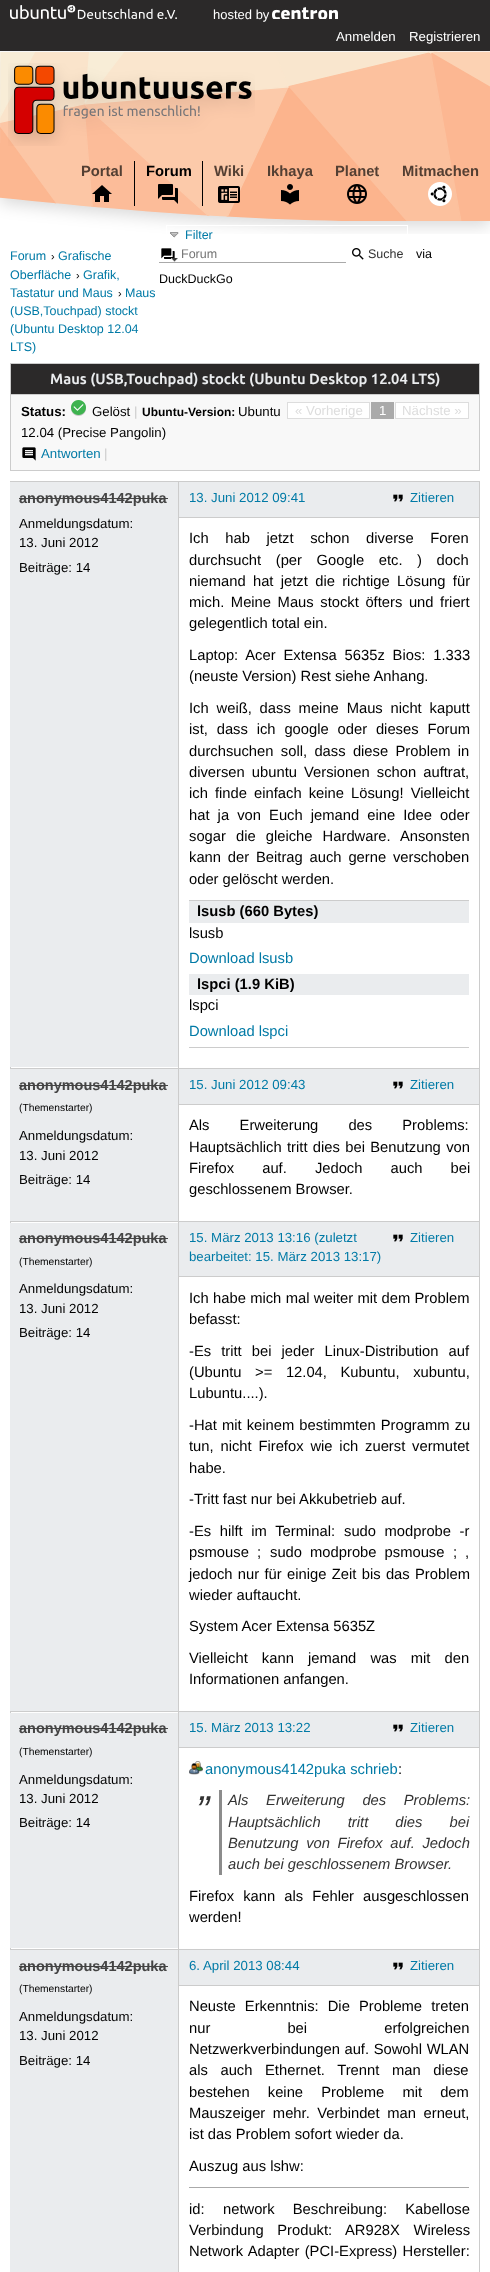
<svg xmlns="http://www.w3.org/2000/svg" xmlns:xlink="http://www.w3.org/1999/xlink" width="490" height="2272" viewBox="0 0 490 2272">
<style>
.cls-1{font:13px Liberation Sans;fill:#ffffff}
.cls-2{font:13.25px Liberation Sans;fill:#ffffff}
.cls-3{font:bold 14.75px Liberation Sans;fill:#533f33}
.cls-4{font:bold 14.75px Liberation Sans;fill:#000000}
.cls-5{font:12.5px Liberation Sans;fill:#007aa6}
.cls-6{font:11px Liberation Sans;fill:#000000}
.cls-7{font:12.5px Liberation Sans;fill:#757575}
.cls-8{font:12.5px Liberation Sans;fill:#333333}
.cls-9{font:12.5px Liberation Sans;fill:#000000}
.cls-10{font:bold 14.75px Ubuntu;fill:#eaecee}
.cls-11{font:bold 13.25px Liberation Sans;fill:#000000}
.cls-12{font:13.25px Liberation Sans;fill:#000000}
.cls-13{font:13.25px Liberation Sans;fill:#cccccc}
.cls-14{font:bold 12px Liberation Sans;fill:#000000}
.cls-15{font:13.25px Liberation Sans;fill:#dddddd}
.cls-16{font:13.25px Liberation Sans;fill:#007aa6}
.cls-17{font:bold 14.5px Liberation Sans;fill:#444444}
.cls-18{font:14.75px Liberation Sans;fill:#000000}
.cls-19{font:14.75px Liberation Sans;fill:#007aa6}
.cls-20{font:10.25px Liberation Sans;fill:#000000}
.cls-21{font:italic 40px Liberation Sans;fill:#333333}
.cls-22{font:italic 14.75px Liberation Sans;fill:#333333}
</style>
<rect width="100%" height="100%" fill="#ffffff"/>
<rect fill="#2b2929" x="0" y="0" width="490" height="51"/>
<image xlink:href="image0.png" x="10" y="5" width="167" height="14"/>
<image xlink:href="image1.png" x="272" y="7" width="66" height="12"/>
<image xlink:href="image2.png" x="0" y="51" width="490" height="183"/>
<image xlink:href="image3.png" x="8" y="63" width="247" height="83"/>
<image xlink:href="image4.png" x="92" y="185" width="20" height="17"/>
<rect fill="#000000" x="202" y="161" width="1" height="45"/>
<rect fill="#000000" x="134" y="161" width="1" height="45"/>
<image xlink:href="image5.png" x="158" y="184" width="20" height="20"/>
<image xlink:href="image6.png" x="218" y="186" width="22" height="17"/>
<image xlink:href="image7.png" x="281" y="184" width="18" height="21"/>
<image xlink:href="image8.png" x="347" y="184" width="20" height="20"/>
<image xlink:href="image9.png" x="428" y="182" width="24" height="24"/>
<rect fill="none" stroke="#ffffff" x="166.5" y="225.5" width="241" height="22"/>
<image xlink:href="image10.png" x="170" y="232" width="9" height="6"/>
<image xlink:href="image11.png" x="161" y="248" width="14" height="11"/>
<rect fill="#aaaaaa" x="159" y="262" width="187" height="1"/>
<image xlink:href="image12.png" x="352" y="248" width="12" height="12"/>
<image xlink:href="image13.png" x="171" y="258" width="7" height="4"/>
<rect fill="#f8f8f8" x="11" y="395" width="468" height="75"/>
<rect fill="none" stroke="#cccccc" x="10.5" y="363.5" width="469" height="107"/>
<rect fill="#2b2929" x="11" y="364" width="468" height="30"/>
<rect fill="#cccccc" x="11" y="394" width="468" height="1"/>
<image xlink:href="image14.png" x="71" y="400" width="15" height="16"/>
<rect fill="#ffffff" stroke="#dddddd" x="287.5" y="402.5" width="82" height="16"/>
<rect fill="#aaaaaa" x="371" y="402" width="23" height="17"/>
<rect fill="#ffffff" stroke="#dddddd" x="395.5" y="402.5" width="73" height="16"/>
<image xlink:href="image15.png" x="22" y="447" width="14" height="14"/>
<rect fill="#cccccc" x="10" y="481" width="470" height="1"/>
<rect fill="#cccccc" x="479" y="481" width="1" height="1791"/>
<rect fill="#cccccc" x="10" y="481" width="1" height="1468"/>
<rect fill="#eaecee" x="10" y="482" width="168" height="585"/>
<rect fill="#444444" x="19" y="498" width="149" height="1"/>
<rect fill="#eaecee" x="179" y="482" width="300" height="35"/>
<rect fill="#cccccc" x="179" y="517" width="300" height="1"/>
<image xlink:href="image16.png" x="393" y="494" width="10" height="8"/>
<rect fill="#cccccc" x="189" y="900" width="280" height="1"/>
<rect fill="#cccccc" x="189" y="1047" width="280" height="1"/>
<rect fill="#eaecee" x="189" y="901" width="280" height="22"/>
<rect fill="#eaecee" x="189" y="974" width="280" height="21"/>
<rect fill="#cccccc" x="10" y="1068" width="470" height="1"/>
<rect fill="#cccccc" x="10" y="1221" width="470" height="1"/>
<rect fill="#cccccc" x="10" y="1711" width="470" height="1"/>
<rect fill="#cccccc" x="10" y="1949" width="470" height="1"/>
<rect fill="#cccccc" x="178" y="1949" width="1" height="323"/>
<rect fill="#cccccc" x="178" y="1711" width="1" height="239"/>
<rect fill="#cccccc" x="178" y="1221" width="1" height="491"/>
<rect fill="#cccccc" x="178" y="481" width="1" height="741"/>
<rect fill="#eaecee" x="10" y="1069" width="168" height="152"/>
<rect fill="#444444" x="19" y="1085" width="149" height="1"/>
<rect fill="#eaecee" x="179" y="1069" width="300" height="35"/>
<rect fill="#cccccc" x="179" y="1104" width="300" height="1"/>
<image xlink:href="image16.png" x="393" y="1081" width="10" height="8"/>
<rect fill="#eaecee" x="10" y="1223" width="168" height="488"/>
<rect fill="#444444" x="19" y="1238" width="149" height="1"/>
<rect fill="#eaecee" x="179" y="1222" width="300" height="54"/>
<rect fill="#cccccc" x="179" y="1276" width="300" height="1"/>
<image xlink:href="image16.png" x="393" y="1234" width="10" height="8"/>
<rect fill="#eaecee" x="10" y="1713" width="168" height="235"/>
<rect fill="#444444" x="19" y="1728" width="149" height="1"/>
<rect fill="#eaecee" x="179" y="1712" width="300" height="35"/>
<rect fill="#cccccc" x="179" y="1747" width="300" height="1"/>
<image xlink:href="image16.png" x="393" y="1724" width="10" height="8"/>
<image xlink:href="image17.png" x="189" y="1761" width="14" height="14"/>
<rect fill="#8c8c8c" x="219" y="1790" width="3" height="85"/>
<rect fill="#eaecee" x="10" y="1950" width="168" height="322"/>
<rect fill="#444444" x="19" y="1966" width="149" height="1"/>
<rect fill="#eaecee" x="179" y="1950" width="300" height="35"/>
<rect fill="#cccccc" x="179" y="1985" width="300" height="1"/>
<image xlink:href="image16.png" x="393" y="1962" width="10" height="8"/>
<rect fill="#aaaaaa" x="189" y="2187" width="280" height="1"/>
<text class="cls-1" x="213" y="19">hosted by</text>
<text class="cls-2" x="336" y="41">Anmelden</text>
<text class="cls-2" x="409" y="41">Registrieren</text>
<text class="cls-3" x="81" y="176">Portal</text>
<text class="cls-4" x="146" y="176">Forum</text>
<text class="cls-3" x="214" y="176">Wiki</text>
<text class="cls-3" x="267" y="176">Ikhaya</text>
<text class="cls-3" x="335" y="176">Planet</text>
<text class="cls-3" x="402" y="176">Mitmachen</text>
<text class="cls-5" x="185" y="239">Filter</text>
<text class="cls-5" x="10" y="260">Forum</text>
<text class="cls-6" x="51" y="260">›</text>
<text class="cls-5" x="58" y="260">Grafische</text>
<text class="cls-5" x="10" y="279">Oberfläche</text>
<text class="cls-6" x="76" y="279">›</text>
<text class="cls-5" x="83" y="279">Grafik,</text>
<text class="cls-5" x="10" y="297">Tastatur und Maus</text>
<text class="cls-6" x="118" y="297">›</text>
<text class="cls-5" x="125" y="297">Maus</text>
<text class="cls-5"><tspan x="10" y="315">(USB,Touchpad) stockt</tspan><tspan x="10" y="333">(Ubuntu Desktop 12.04</tspan><tspan x="10" y="351">LTS)</tspan></text>
<text class="cls-7" x="181" y="258">Forum</text>
<text class="cls-8" x="368" y="258">Suche</text>
<text class="cls-9" x="416" y="258">via</text>
<text class="cls-9" x="159" y="283">DuckDuckGo</text>
<text class="cls-10" x="50" y="384">Maus (USB,Touchpad) stockt (Ubuntu Desktop 12.04 LTS)</text>
<text class="cls-11" x="21" y="416">Status:</text>
<text class="cls-12" x="92" y="416">Gelöst</text>
<text class="cls-13" x="134" y="416">|</text>
<text class="cls-14" x="142" y="416">Ubuntu-Version:</text>
<text class="cls-12" x="238" y="416">Ubuntu</text>
<text class="cls-15" x="295" y="415">« Vorherige</text>
<text class="cls-2" x="379" y="415">1</text>
<text class="cls-15" x="402" y="415">Nächste »</text>
<text class="cls-12" x="21" y="437">12.04 (Precise Pangolin)</text>
<text class="cls-16" x="41" y="458">Antworten</text>
<text class="cls-13" x="104" y="458">|</text>
<text class="cls-17" x="19" y="503">anonymous4142puka</text>
<text class="cls-12"><tspan x="19" y="528">Anmeldungsdatum:</tspan><tspan x="19" y="547">13. Juni 2012</tspan><tspan x="19" y="572">Beiträge: 14</tspan></text>
<text class="cls-16" x="189" y="502">13. Juni 2012 09:41</text>
<text class="cls-16" x="410" y="502">Zitieren</text>
<text class="cls-18"><tspan x="189" y="543" word-spacing="12.5">Ich hab jetzt schon diverse Foren</tspan><tspan x="189" y="565" word-spacing="10.5">durchsucht (per Google etc. ) doch</tspan><tspan x="189" y="586" word-spacing="3.25">niemand hat jetzt die richtige Lösung für</tspan><tspan x="189" y="607" word-spacing="2.5">mich. Meine Maus stockt öfters und friert</tspan><tspan x="189" y="628">gelegentlich total ein.</tspan></text>
<text class="cls-18"><tspan x="189" y="660" word-spacing="3.75">Laptop: Acer Extensa 5635z Bios: 1.333</tspan><tspan x="189" y="681">(neuste Version) Rest siehe Anhang.</tspan></text>
<text class="cls-18"><tspan x="189" y="713" word-spacing="3.75">Ich weiß, dass meine Maus nicht kaputt</tspan><tspan x="189" y="734" word-spacing="4.75">ist, dass ich google oder dieses Forum</tspan><tspan x="189" y="756" word-spacing="3.25">durchsuchen soll, dass diese Problem in</tspan><tspan x="189" y="777" word-spacing="3">diversen ubuntu Versionen schon auftrat,</tspan><tspan x="189" y="798" word-spacing="3">ich finde einfach keine Lösung! Vielleicht</tspan><tspan x="189" y="820" word-spacing="4">hat ja von Euch jemand eine Idee oder</tspan><tspan x="189" y="841" word-spacing="6">sogar die gleiche Hardware. Ansonsten</tspan><tspan x="189" y="862" word-spacing="2.75">kann der Beitrag auch gerne verschoben</tspan><tspan x="189" y="884">oder gelöscht werden.</tspan></text>
<text class="cls-4" x="197" y="916">lsusb (660 Bytes)</text>
<text class="cls-18" x="189" y="938">lsusb</text>
<text class="cls-19" x="189" y="963">Download lsusb</text>
<text class="cls-4" x="197" y="989">lspci (1.9 KiB)</text>
<text class="cls-18" x="189" y="1010">lspci</text>
<text class="cls-19" x="189" y="1036">Download lspci</text>
<text class="cls-17" x="19" y="1090">anonymous4142puka</text>
<text class="cls-20" x="19" y="1111">(Themenstarter)</text>
<text class="cls-12"><tspan x="19" y="1140">Anmeldungsdatum:</tspan><tspan x="19" y="1160">13. Juni 2012</tspan><tspan x="19" y="1184">Beiträge: 14</tspan></text>
<text class="cls-16" x="189" y="1089">15. Juni 2012 09:43</text>
<text class="cls-16" x="410" y="1089">Zitieren</text>
<text class="cls-18"><tspan x="189" y="1130" word-spacing="26">Als Erweiterung des Problems:</tspan><tspan x="189" y="1152" word-spacing="1.25">Hauptsächlich tritt dies bei Benutzung von</tspan><tspan x="189" y="1173" word-spacing="24">Firefox auf. Jedoch auch bei</tspan><tspan x="189" y="1194">geschlossenem Browser.</tspan></text>
<text class="cls-17" x="19" y="1243">anonymous4142puka</text>
<text class="cls-20" x="19" y="1265">(Themenstarter)</text>
<text class="cls-12"><tspan x="19" y="1293">Anmeldungsdatum:</tspan><tspan x="19" y="1313">13. Juni 2012</tspan><tspan x="19" y="1337">Beiträge: 14</tspan></text>
<text class="cls-16" x="189" y="1242">15. März 2013 13:16 (zuletzt</text>
<text class="cls-16" x="410" y="1242">Zitieren</text>
<text class="cls-16" x="189" y="1261">bearbeitet: 15. März 2013 13:17)</text>
<text class="cls-18"><tspan x="189" y="1303" word-spacing="0.25">Ich habe mich mal weiter mit dem Problem</tspan><tspan x="189" y="1324">befasst:</tspan></text>
<text class="cls-18"><tspan x="189" y="1356" word-spacing="6">-Es tritt bei jeder Linux-Distribution auf</tspan><tspan x="189" y="1377" word-spacing="9.5">(Ubuntu &gt;= 12.04, Kubuntu, xubuntu,</tspan><tspan x="189" y="1398">Lubuntu....).</tspan></text>
<text class="cls-18"><tspan x="189" y="1430" word-spacing="1">-Hat mit keinem bestimmten Programm zu</tspan><tspan x="189" y="1451" word-spacing="2.75">tun, nicht Firefox wie ich zuerst vermutet</tspan><tspan x="189" y="1473">habe.</tspan></text>
<text class="cls-18" x="189" y="1504">-Tritt fast nur bei Akkubetrieb auf.</text>
<text class="cls-18" x="189" y="1536" word-spacing="4.5">-Es hilft im Terminal:</text>
<text class="cls-18" x="344" y="1536" word-spacing="4.5">sudo modprobe -r</text>
<text class="cls-18" x="189" y="1557" word-spacing="4">psmouse ;</text>
<text class="cls-18" x="270" y="1557" word-spacing="4">sudo modprobe psmouse</text>
<text class="cls-18" x="453" y="1557">;</text>
<text class="cls-18" x="465" y="1557">,</text>
<text class="cls-18"><tspan x="189" y="1579" word-spacing="1.25">jedoch nur für einige Zeit bis das Problem</tspan><tspan x="189" y="1600">wieder auftaucht.</tspan></text>
<text class="cls-18" x="189" y="1631">System Acer Extensa 5635Z</text>
<text class="cls-18"><tspan x="189" y="1663" word-spacing="10">Vielleicht kann jemand was mit den</tspan><tspan x="189" y="1684">Informationen anfangen.</tspan></text>
<text class="cls-17" x="19" y="1733">anonymous4142puka</text>
<text class="cls-20" x="19" y="1755">(Themenstarter)</text>
<text class="cls-12"><tspan x="19" y="1784">Anmeldungsdatum:</tspan><tspan x="19" y="1803">13. Juni 2012</tspan><tspan x="19" y="1827">Beiträge: 14</tspan></text>
<text class="cls-16" x="189" y="1732">15. März 2013 13:22</text>
<text class="cls-16" x="410" y="1732">Zitieren</text>
<text class="cls-19" x="205" y="1774">anonymous4142puka schrieb</text>
<text class="cls-18" x="398" y="1774">:</text>
<text class="cls-21" x="200" y="1800">„</text>
<text class="cls-22"><tspan x="228" y="1805" word-spacing="13.5">Als Erweiterung des Problems:</tspan><tspan x="228" y="1827" word-spacing="23">Hauptsächlich tritt dies bei</tspan><tspan x="228" y="1848" word-spacing="3.5">Benutzung von Firefox auf. Jedoch</tspan><tspan x="228" y="1869">auch bei geschlossenem Browser.</tspan></text>
<text class="cls-18"><tspan x="189" y="1901" word-spacing="5">Firefox kann als Fehler ausgeschlossen</tspan><tspan x="189" y="1922">werden!</tspan></text>
<text class="cls-17" x="19" y="1971">anonymous4142puka</text>
<text class="cls-20" x="19" y="1992">(Themenstarter)</text>
<text class="cls-12"><tspan x="19" y="2021">Anmeldungsdatum:</tspan><tspan x="19" y="2040">13. Juni 2012</tspan><tspan x="19" y="2065">Beiträge: 14</tspan></text>
<text class="cls-16" x="189" y="1970">6. April 2013 08:44</text>
<text class="cls-16" x="410" y="1970">Zitieren</text>
<text class="cls-18"><tspan x="189" y="2011" word-spacing="5">Neuste Erkenntnis: Die Probleme treten</tspan><tspan x="189" y="2033" word-spacing="73">nur bei erfolgreichen</tspan><tspan x="189" y="2054" word-spacing="0.5">Netzwerkverbindungen auf. Sowohl WLAN</tspan><tspan x="189" y="2075" word-spacing="8.5">als auch Ethernet. Trennt man diese</tspan><tspan x="189" y="2097" word-spacing="14">bestehen keine Probleme mit dem</tspan><tspan x="189" y="2118" word-spacing="3.5">Mauszeiger mehr. Verbindet man erneut,</tspan><tspan x="189" y="2139">ist das Problem sofort wieder da.</tspan></text>
<text class="cls-18" x="189" y="2171">Auszug aus lshw:</text>
<text class="cls-18" x="189" y="2214">id:</text>
<text class="cls-18" x="223" y="2214" word-spacing="14">network Beschreibung: Kabellose</text>
<text class="cls-18"><tspan x="189" y="2235" word-spacing="9.5">Verbindung Produkt: AR928X Wireless</tspan><tspan x="189" y="2256" word-spacing="1.25">Network Adapter (PCI-Express) Hersteller:</tspan></text>
</svg>
